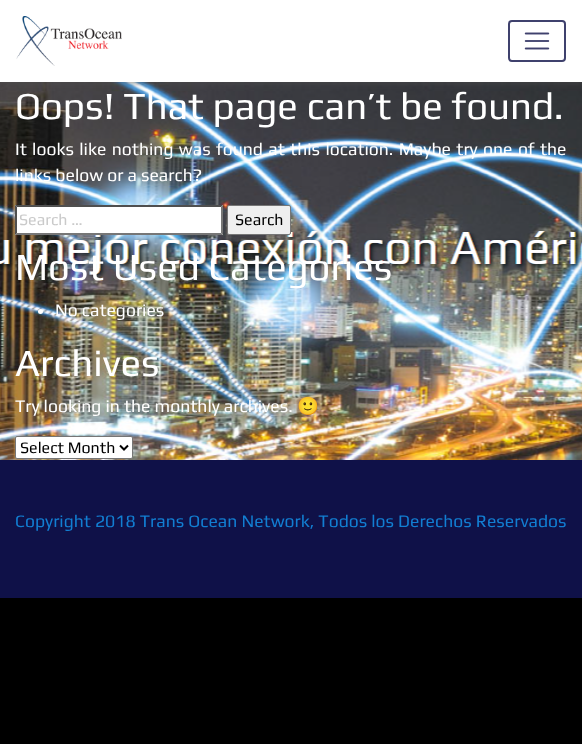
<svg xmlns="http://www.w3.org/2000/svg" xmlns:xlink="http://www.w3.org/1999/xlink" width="582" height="744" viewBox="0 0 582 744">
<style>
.cls-1{font:38.4px Play;fill:#ffffff}
.cls-2{font:17.6px Play;fill:#ffffff}
.cls-3{font:16px Play;fill:#cacaca}
.cls-4{font:16px Play;fill:#000000}
.cls-5{font:17.6px Noto Color Emoji;fill:#ffffff}
.cls-6{font:17.6px Play;fill:#127ed2}
</style>
<rect width="100%" height="100%" fill="#000000"/>
<image xlink:href="image0.png" x="0" y="82" width="582" height="378"/>
<rect fill="#4e4e4e" fill-opacity="0.5" filter="blur(2.5px)" x="2" y="2" width="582" height="82"/>
<rect fill="#ffffff" x="0" y="0" width="582" height="82"/>
<image xlink:href="image1.png" x="16" y="16" width="106" height="50"/>
<rect fill="none" stroke="#3f416d" stroke-width="2" x="509" y="21" width="56" height="40" rx="3"/>
<image xlink:href="image2.png" x="524" y="32" width="26" height="18"/>
<rect fill="#ffffff" x="15" y="205" width="208" height="30"/>
<path fill="#4f4f4f" d="M15 205H223L221 207H17Z"/>
<path fill="#767676" d="M223 205V235L221 233V207Z"/>
<path fill="#767676" d="M223 235H15L17 233H221Z"/>
<path fill="#4f4f4f" d="M15 235V205L17 207V233Z"/>
<rect fill="#efefef" stroke="#767676" x="227.5" y="205.5" width="63" height="29" rx="1.5"/>
<circle fill="#ffffff" cx="40.5" cy="311.5" r="2.5"/>
<rect fill="#ffffff" stroke="#767676" x="15.5" y="436.5" width="117" height="22" rx="1.5"/>
<path fill="none" stroke="#000000" stroke-width="2" d="M120 445.5L124 449.5L128 445.5"/>
<rect fill="#0f1148" x="0" y="460" width="582" height="138"/>
<text class="cls-1" x="15" y="119">Oops! That page can’t be found.</text>
<text class="cls-2"><tspan x="15" y="155" word-spacing="1.3">It looks like nothing was found at this location. Maybe try one of the</tspan><tspan x="15" y="181">links below or a search?</tspan></text>
<text class="cls-3" x="19" y="225">Search …</text>
<text class="cls-4" x="235" y="225">Search</text>
<text class="cls-1" x="15" y="280">Most Used Categories</text>
<text class="cls-2" x="55" y="316">No categories</text>
<text class="cls-1" x="15" y="376">Archives</text>
<text class="cls-2" x="15" y="412">Try looking in the monthly archives.</text>
<text class="cls-5" x="297" y="412">🙂</text>
<text class="cls-4" x="20" y="453">Select Month</text>
<text class="cls-6" x="15" y="527">Copyright 2018 Trans Ocean Network, Todos los Derechos Reservados</text>
</svg>
